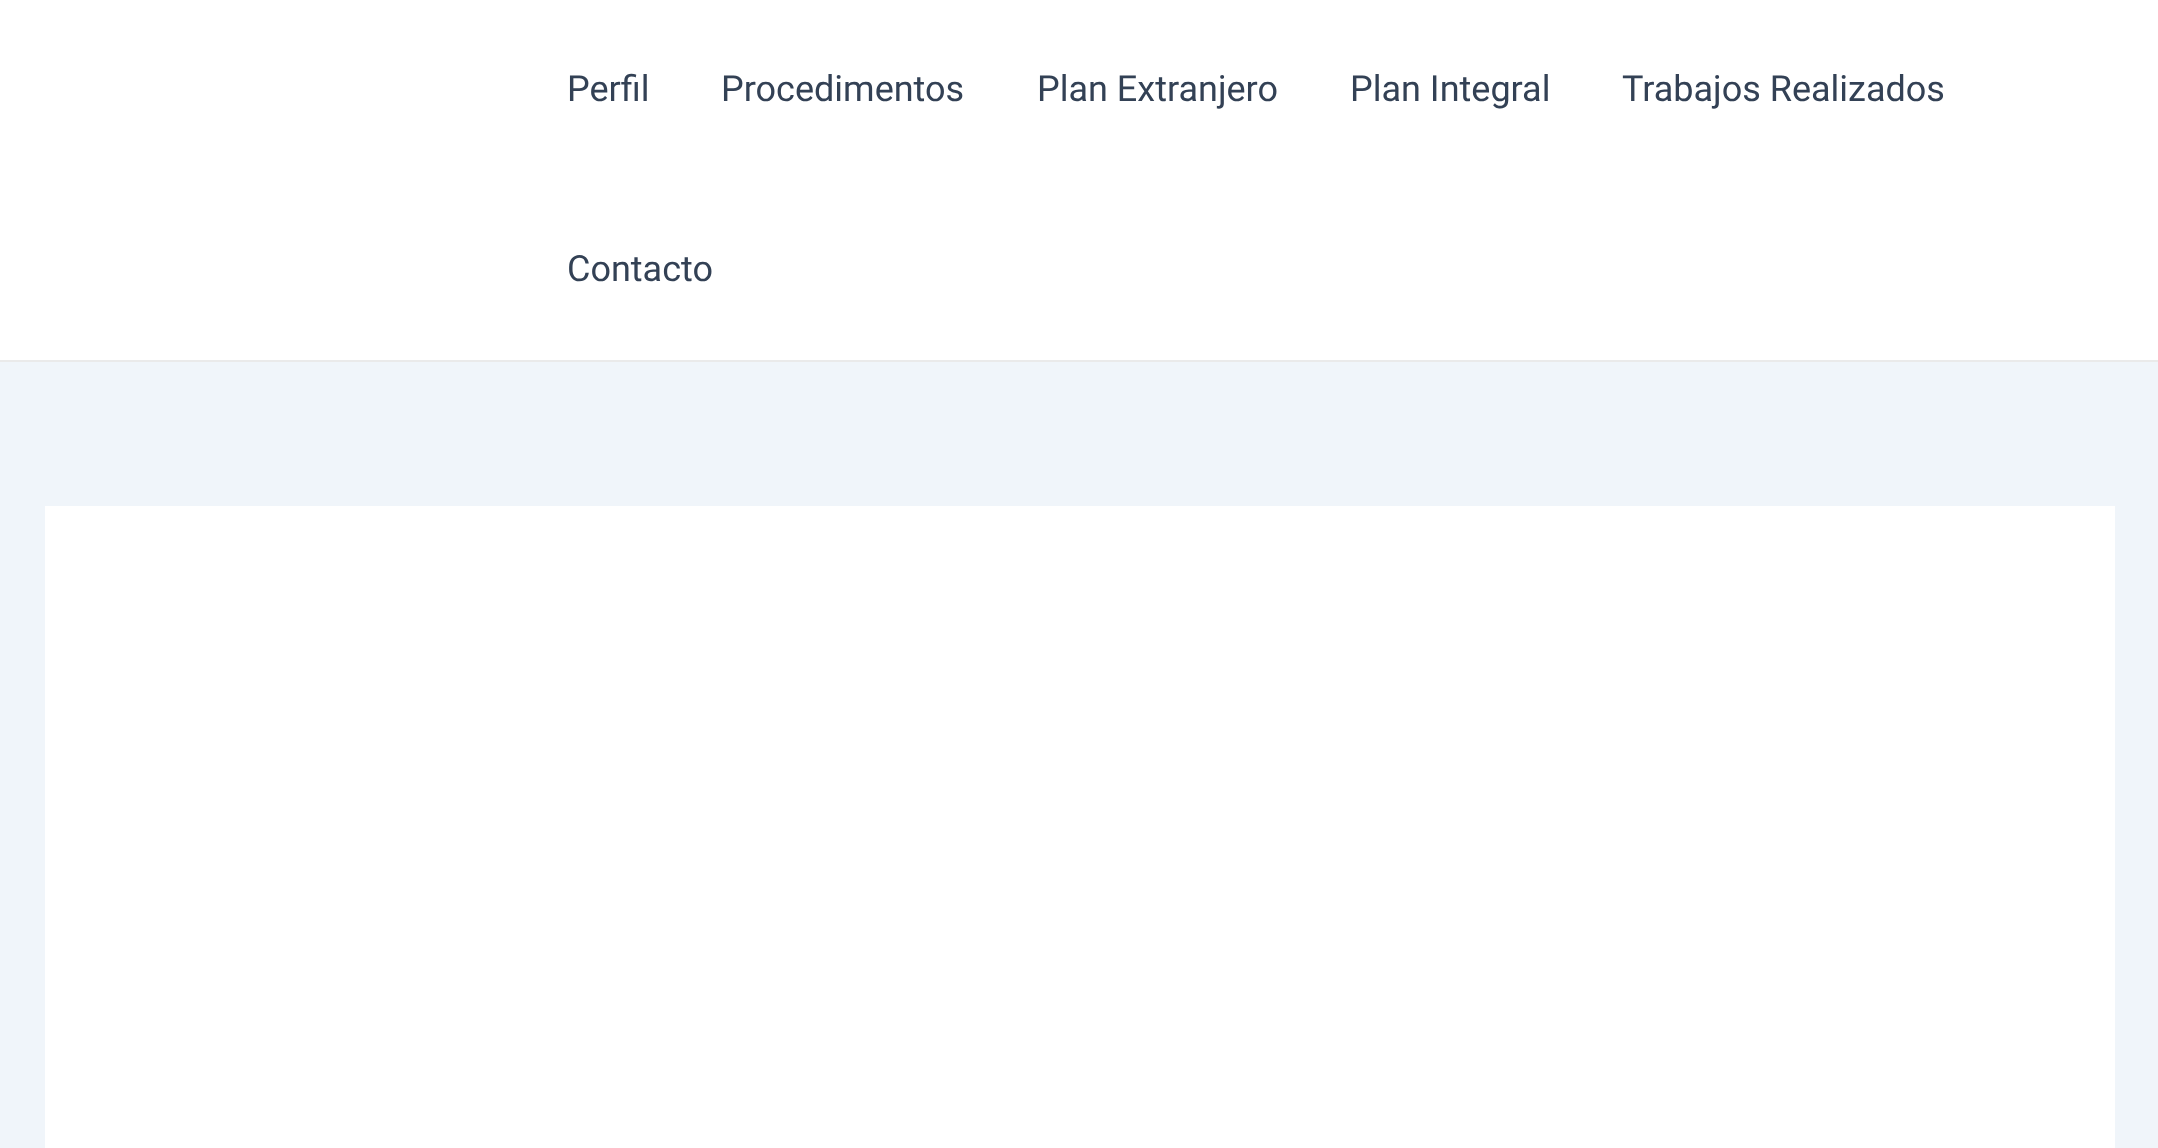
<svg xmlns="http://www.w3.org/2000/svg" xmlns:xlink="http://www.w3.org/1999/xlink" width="2158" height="1148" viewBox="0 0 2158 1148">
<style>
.cls-1{font:36px Roboto;fill:#334155}
</style>
<rect width="100%" height="100%" fill="#f0f5fa"/>
<rect fill="#ffffff" x="0" y="0" width="2158" height="360"/>
<rect fill="#eaeaea" x="0" y="360" width="2158" height="2"/>
<rect fill="#ffffff" x="45" y="506" width="2070" height="642"/>
<text class="cls-1" x="567" y="101">Perfil</text>
<text class="cls-1" x="721" y="101">Procedimentos</text>
<text class="cls-1" x="1037" y="101">Plan Extranjero</text>
<text class="cls-1" x="1350" y="101">Plan Integral</text>
<text class="cls-1" x="1622" y="101">Trabajos Realizados</text>
<text class="cls-1" x="567" y="281">Contacto</text>
</svg>
